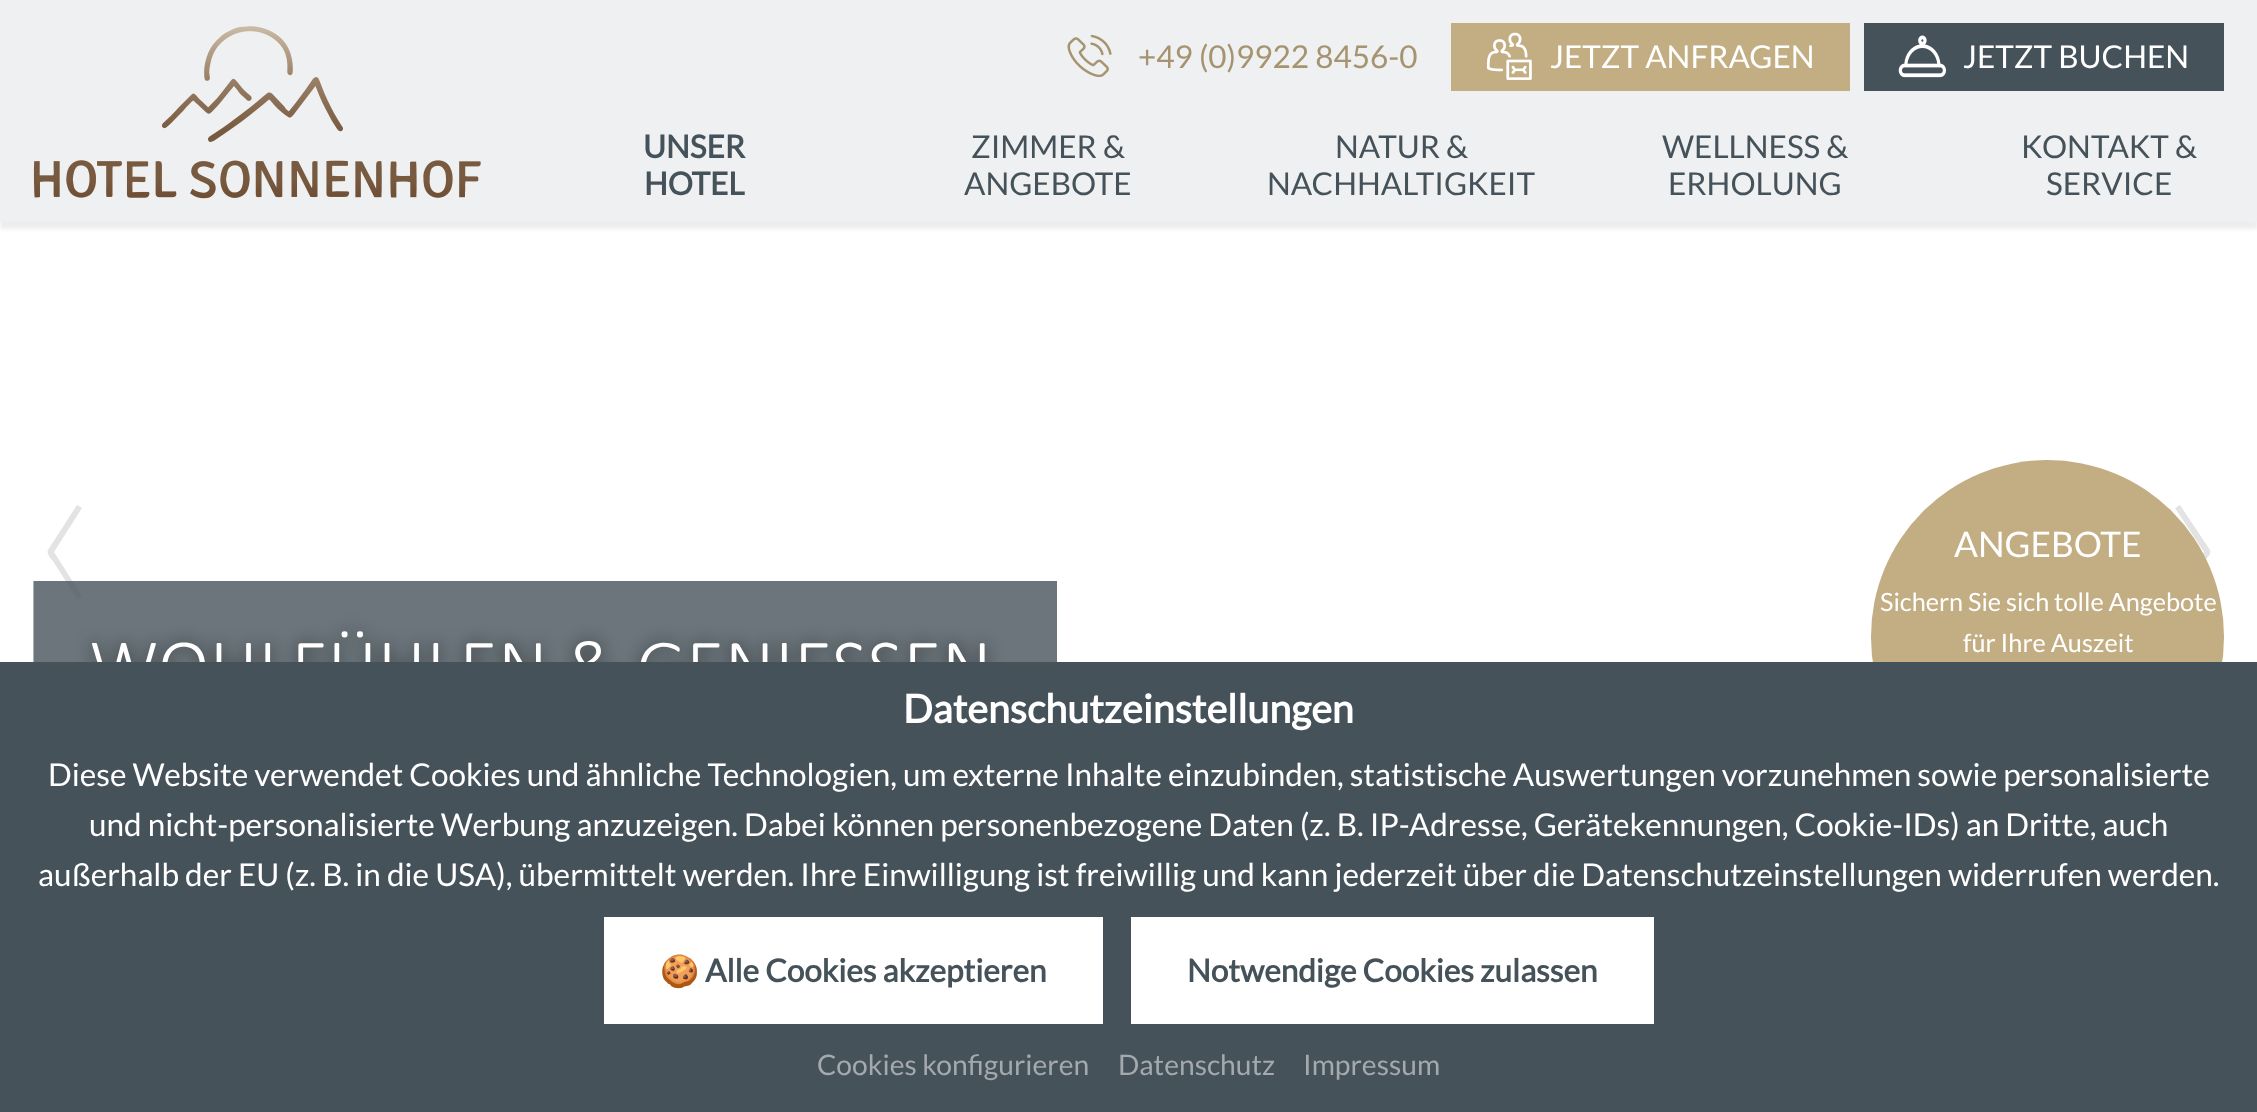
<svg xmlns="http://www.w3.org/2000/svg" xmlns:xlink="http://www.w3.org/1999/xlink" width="2257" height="1112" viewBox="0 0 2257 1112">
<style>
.cls-1{font:31.5px Lato;fill:#a69470}
.cls-2{font:31.5px Lato;fill:#ffffff}
.cls-3{font:bold 31.5px Lato;fill:#46525a}
.cls-4{font:31.5px Lato;fill:#46525a}
.cls-5{font:35.25px Lato;fill:#ffffff}
.cls-6{font:25.25px Lato;fill:#ffffff}
.cls-7{font:bold 39.4px Lato;fill:#ffffff}
.cls-8{font:bold 31.5px Noto Color Emoji;fill:#46525a}
.cls-9{font:28.25px Lato;fill:#a3a9ad}
</style>
<rect width="100%" height="100%" fill="#ffffff"/>
<rect fill="#46525a" fill-opacity="0.1" filter="blur(2px)" x="0" y="7" width="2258" height="222"/>
<rect fill="#eff0f2" x="0" y="0" width="2257" height="222"/>
<image xlink:href="image0.png" x="33" y="26" width="448" height="173"/>
<image xlink:href="image1.png" x="1067" y="34" width="45" height="44"/>
<rect fill="#c3ae83" x="1451" y="23" width="399" height="68"/>
<image xlink:href="image2.png" x="1486" y="32" width="46" height="48"/>
<rect fill="#46525a" x="1864" y="23" width="360" height="68"/>
<image xlink:href="image3.png" x="1898" y="35" width="48" height="43"/>
<path fill="#e3e3e3" d="M48 550L77 505L82 508L54 552L82 596L77 599L53 561C52 560 46 554 48 550Z"/>
<path fill="#e3e3e3" d="M2210 550L2180 505L2175 508L2204 552L2175 596L2180 599L2205 561C2205 560 2212 554 2210 550Z"/>
<image xlink:href="image4.png" x="33" y="581" width="1024" height="81"/>
<rect fill="#c3ae83" x="1871" y="460" width="353" height="354" rx="176.5"/>
<rect fill="#46525a" x="0" y="662" width="2257" height="450"/>
<rect fill="#ffffff" x="604" y="917" width="499" height="107"/>
<rect fill="#ffffff" x="1131" y="917" width="523" height="107"/>
<text class="cls-1" x="1138" y="68">+49 (0)9922 8456-0</text>
<text class="cls-2" x="1550" y="68">JETZT ANFRAGEN</text>
<text class="cls-2" x="1963" y="68">JETZT BUCHEN</text>
<text class="cls-3" x="643" y="158">UNSER</text>
<text class="cls-3" x="644" y="195">HOTEL</text>
<text class="cls-4" x="971" y="158">ZIMMER &amp;</text>
<text class="cls-4" x="964" y="195">ANGEBOTE</text>
<text class="cls-4" x="1335" y="158">NATUR &amp;</text>
<text class="cls-4" x="1267" y="195">NACHHALTIGKEIT</text>
<text class="cls-4" x="1662" y="158">WELLNESS &amp;</text>
<text class="cls-4" x="1668" y="195">ERHOLUNG</text>
<text class="cls-4" x="2021" y="158">KONTAKT &amp;</text>
<text class="cls-4" x="2046" y="195">SERVICE</text>
<text class="cls-5" x="1954" y="557">ANGEBOTE</text>
<text class="cls-6" x="1880" y="611">Sichern Sie sich tolle Angebote</text>
<text class="cls-6" x="1963" y="652">für Ihre Auszeit</text>
<text class="cls-7" x="903" y="723">Datenschutzeinstellungen</text>
<text class="cls-2" x="48" y="786">Diese Website verwendet Cookies und ähnliche Technologien, um externe Inhalte einzubinden, statistische Auswertungen vorzunehmen sowie personalisierte</text>
<text class="cls-2" x="89" y="836">und nicht-personalisierte Werbung anzuzeigen. Dabei können personenbezogene Daten (z. B. IP-Adresse, Gerätekennungen, Cookie-IDs) an Dritte, auch</text>
<text class="cls-2" x="38" y="886">außerhalb der EU (z. B. in die USA), übermittelt werden. Ihre Einwilligung ist freiwillig und kann jederzeit über die Datenschutzeinstellungen widerrufen werden.</text>
<text class="cls-8" x="660" y="982">🍪</text>
<text class="cls-3" x="705" y="982">Alle Cookies akzeptieren</text>
<text class="cls-3" x="1187" y="982">Notwendige Cookies zulassen</text>
<text class="cls-9" x="817" y="1075">Cookies konfigurieren</text>
<text class="cls-9" x="1118" y="1075">Datenschutz</text>
<text class="cls-9" x="1303" y="1075">Impressum</text>
</svg>
